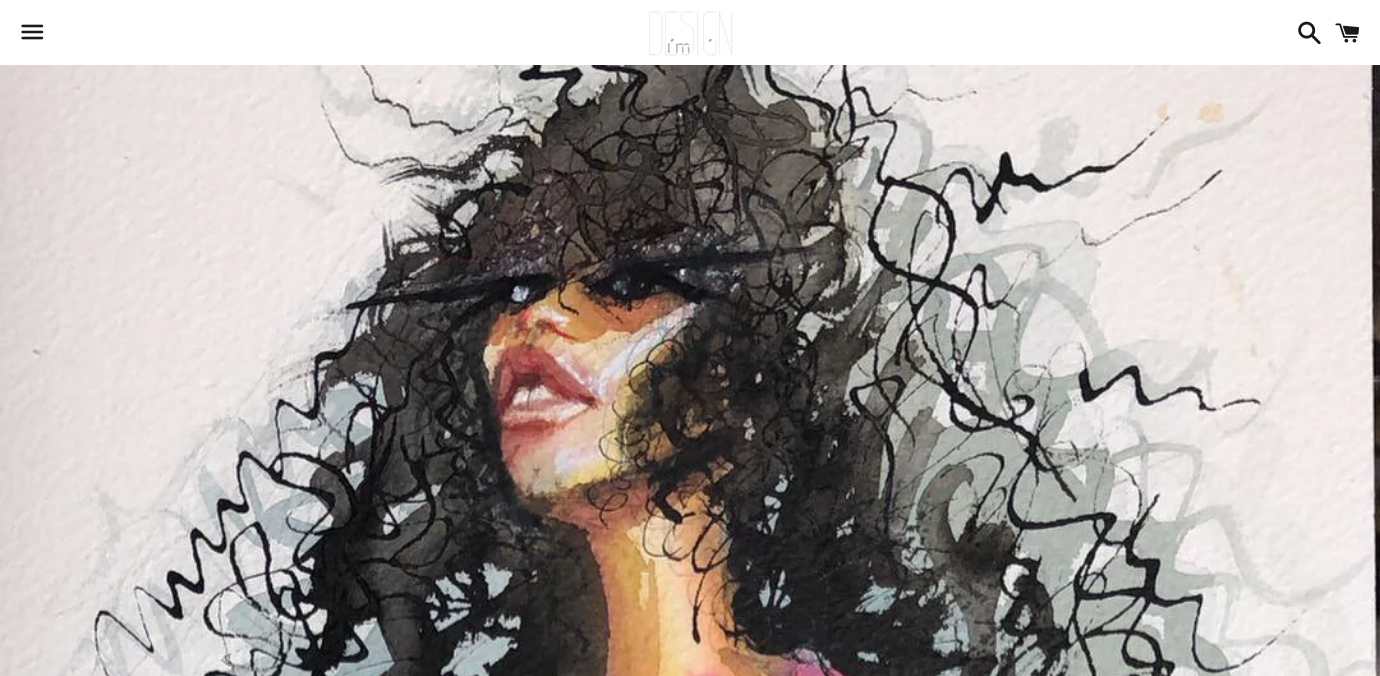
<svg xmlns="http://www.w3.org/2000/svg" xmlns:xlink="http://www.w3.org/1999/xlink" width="1380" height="676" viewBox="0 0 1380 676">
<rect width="100%" height="100%" fill="#ffffff"/>
<image xlink:href="image0.png" x="21" y="24" width="23" height="16"/>
<image xlink:href="image1.png" x="649" y="11" width="84" height="45"/>
<image xlink:href="image2.png" x="1298" y="21" width="23" height="24"/>
<image xlink:href="image3.png" x="1335" y="23" width="25" height="20"/>
<image xlink:href="image4.png" x="0" y="65" width="1380" height="611"/>
</svg>
